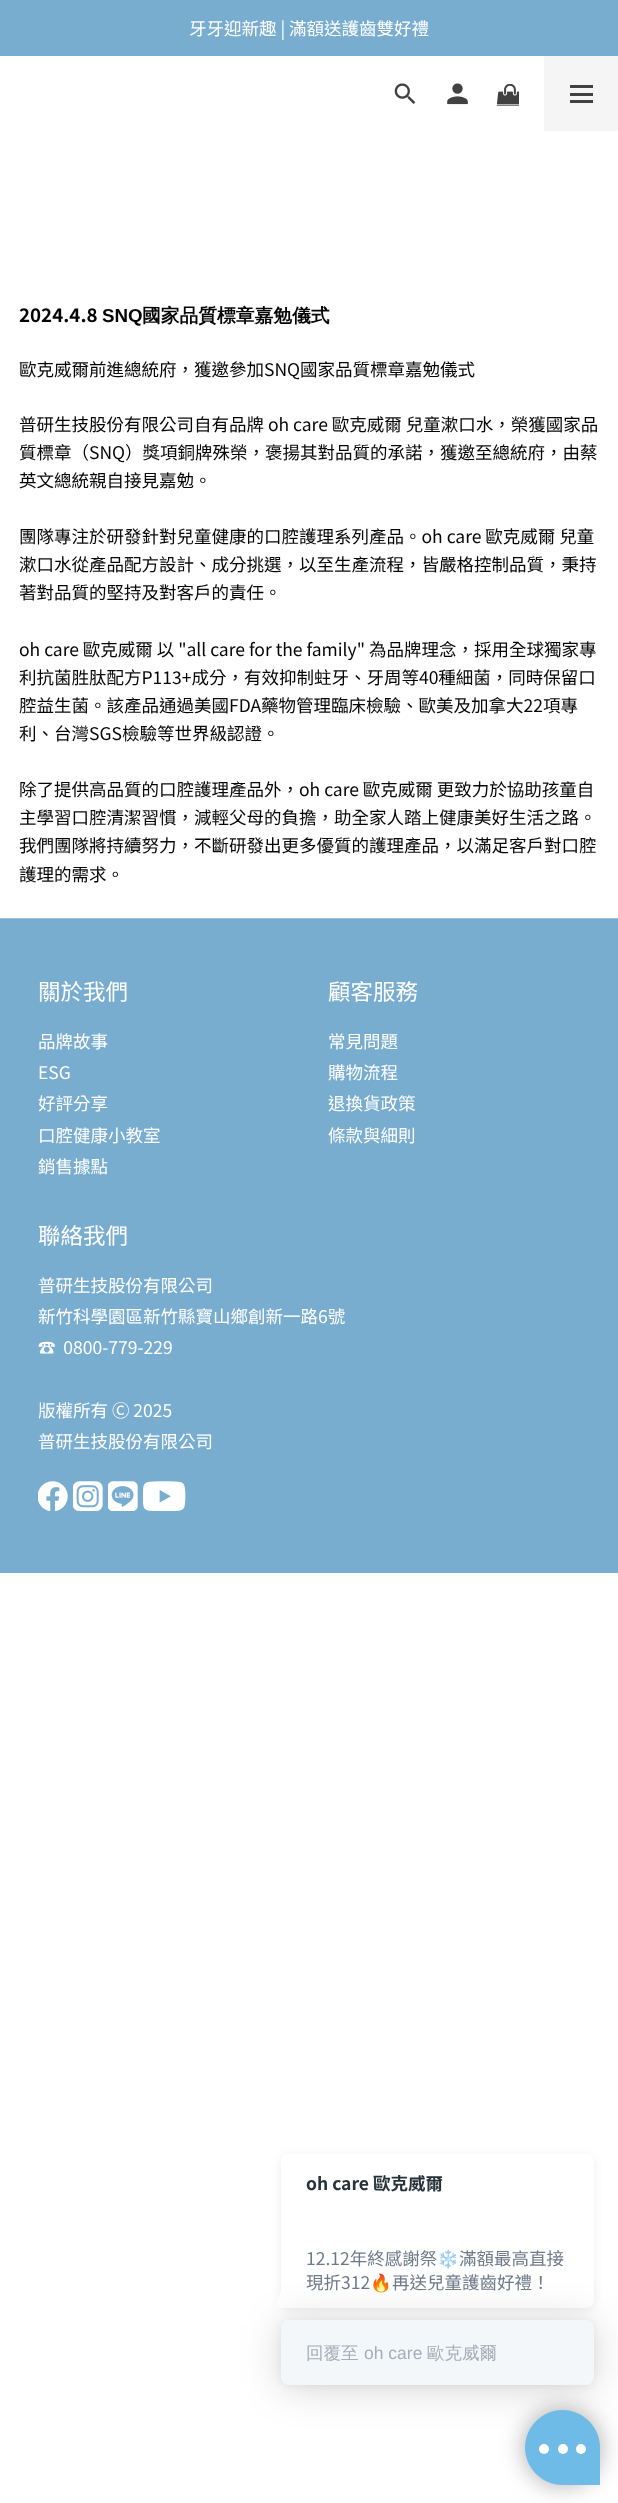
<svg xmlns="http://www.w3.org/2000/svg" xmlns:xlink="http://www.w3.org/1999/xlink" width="618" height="2503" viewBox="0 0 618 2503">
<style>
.cls-1{font:17.5px Noto Sans TC;fill:#ffffff}
.cls-2{font:bold 18.75px Noto Sans TC;fill:#050505}
.cls-3{font:bold 18.75px Liberation Sans;fill:#050505}
.cls-4{font:bold 18.75px WenQuanYi Zen Hei;fill:#050505}
.cls-5{font:17.5px Noto Sans TC;fill:#050505}
.cls-6{font:22.5px Noto Sans TC;fill:#ffffff}
.cls-7{font:bold 17.5px Noto Sans TC;fill:#263238}
.cls-8{font:17.5px Noto Sans TC;fill:#6e7a89}
.cls-9{font:17.5px Noto Color Emoji;fill:#6e7a89}
.cls-10{font:500 17.5px WenQuanYi Zen Hei;fill:#a5adb6}
.cls-11{font:17.5px Liberation Sans;fill:#a5adb6}
</style>
<rect width="100%" height="100%" fill="#ffffff"/>
<rect fill="#79add0" x="0" y="0" width="618" height="56"/>
<image xlink:href="image0.png" x="394" y="83" width="22" height="21"/>
<image xlink:href="image1.png" x="447" y="83" width="21" height="22"/>
<image xlink:href="image2.png" x="496" y="84" width="23" height="22"/>
<rect fill="#f5f5f5" x="544" y="56" width="74" height="75"/>
<rect fill="#414141" x="570" y="93" width="23" height="3"/>
<rect fill="#414141" x="570" y="85" width="23" height="3"/>
<rect fill="#414141" x="570" y="100" width="23" height="3"/>
<rect fill="#79add0" x="0" y="919" width="618" height="654"/>
<rect fill="#97bfda" x="0" y="918" width="618" height="1"/>
<image xlink:href="image3.png" x="38" y="1481" width="30" height="30"/>
<image xlink:href="image4.png" x="73" y="1481" width="30" height="30"/>
<image xlink:href="image5.png" x="108" y="1481" width="30" height="30"/>
<image xlink:href="image6.png" x="143" y="1481" width="43" height="30"/>
<rect fill="#232f35" fill-opacity="0.09" filter="blur(5px)" x="281" y="2156" width="313" height="154" rx="8"/>
<path fill="#ffffff" d="M289 2154H586C590.5 2154 594 2157.5 594 2162V2300C594 2304.5 590.5 2308 586 2308H281V2162C281 2157.5 284.5 2154 289 2154Z"/>
<path fill="#ffffff" d="M281 2307.5H275L281 2291Z"/>
<rect fill="#000000" fill-opacity="0.16" filter="blur(20px)" x="281" y="2323" width="313" height="65" rx="8"/>
<rect fill="#000000" fill-opacity="0.06" filter="blur(4px)" x="281" y="2321" width="313" height="65" rx="8"/>
<rect fill="#f4f7f9" x="281" y="2320" width="313" height="65" rx="8"/>
<rect fill="#777777" fill-opacity="0.64" filter="blur(12.5px)" x="525" y="2410" width="75" height="75" rx="37.5"/>
<path fill="#6fbbe7" d="M562.5 2410C583 2410 600 2427 600 2447.5V2485H562.5C542 2485 525 2468 525 2447.5C525 2427 542 2410 562.5 2410Z"/>
<circle fill="#ffffff" cx="544" cy="2449" r="5"/>
<circle fill="#ffffff" cx="563" cy="2449" r="5"/>
<circle fill="#ffffff" cx="581" cy="2449" r="5"/>
<text class="cls-1" x="189" y="35">牙牙迎新趣 | 滿額送護齒雙好禮</text>
<text class="cls-2" x="19" y="322">2024.4.8</text>
<text class="cls-3" x="102" y="322">SNQ</text>
<text class="cls-4" x="142" y="322">國家品質標章嘉勉儀式</text>
<text class="cls-5" x="19" y="376">歐克威爾前進總統府，獲邀參加SNQ國家品質標章嘉勉儀式</text>
<text class="cls-5"><tspan x="19" y="431">普研生技股份有限公司自有品牌 oh care 歐克威爾 兒童漱口水，榮獲國家品</tspan><tspan x="19" y="459">質標章（SNQ）獎項銅牌殊榮，褒揚其對品質的承諾，獲邀至總統府，由蔡</tspan><tspan x="19" y="487">英文總統親自接見嘉勉。</tspan></text>
<text class="cls-5"><tspan x="19" y="543">團隊專注於研發針對兒童健康的口腔護理系列產品。oh care 歐克威爾 兒童</tspan><tspan x="19" y="571">漱口水從產品配方設計、成分挑選，以至生產流程，皆嚴格控制品質，秉持</tspan><tspan x="19" y="599">著對品質的堅持及對客戶的責任。</tspan></text>
<text class="cls-5"><tspan x="19" y="656">oh care 歐克威爾 以 "all care for the family" 為品牌理念，採用全球獨家專</tspan><tspan x="19" y="684">利抗菌胜肽配方P113+成分，有效抑制蛀牙、牙周等40種細菌，同時保留口</tspan><tspan x="19" y="712">腔益生菌。該產品通過美國FDA藥物管理臨床檢驗、歐美及加拿大22項專</tspan><tspan x="19" y="740">利、台灣SGS檢驗等世界級認證。</tspan></text>
<text class="cls-5"><tspan x="19" y="796">除了提供高品質的口腔護理產品外，oh care 歐克威爾 更致力於協助孩童自</tspan><tspan x="19" y="824">主學習口腔清潔習慣，減輕父母的負擔，助全家人踏上健康美好生活之路。</tspan><tspan x="19" y="852">我們團隊將持續努力，不斷研發出更多優質的護理產品，以滿足客戶對口腔</tspan><tspan x="19" y="881">護理的需求。</tspan></text>
<text class="cls-6" x="38" y="1000">關於我們</text>
<text class="cls-1"><tspan x="38" y="1048">品牌故事</tspan><tspan x="38" y="1079">ESG</tspan><tspan x="38" y="1110">好評分享</tspan><tspan x="38" y="1142">口腔健康小教室</tspan><tspan x="38" y="1173">銷售據點</tspan></text>
<text class="cls-6" x="328" y="1000">顧客服務</text>
<text class="cls-1"><tspan x="328" y="1048">常見問題</tspan><tspan x="328" y="1079">購物流程</tspan><tspan x="328" y="1110">退換貨政策</tspan><tspan x="328" y="1142">條款與細則</tspan></text>
<text class="cls-6" x="38" y="1244">聯絡我們</text>
<text class="cls-1" xml:space="preserve"><tspan x="38" y="1292">普研生技股份有限公司</tspan><tspan x="38" y="1323">新竹科學園區新竹縣寶山鄉創新一路6號</tspan><tspan x="38" y="1354">☎  0800-779-229</tspan></text>
<text class="cls-1"><tspan x="38" y="1417">版權所有 Ⓒ 2025</tspan><tspan x="38" y="1448">普研生技股份有限公司</tspan></text>
<text class="cls-7" x="306" y="2190">oh care 歐克威爾</text>
<text class="cls-8" x="306" y="2265">12.12年終感謝祭</text>
<text class="cls-9" x="437" y="2265">❄️</text>
<text class="cls-8" x="459" y="2265">滿額最高直接</text>
<text class="cls-8" x="306" y="2289">現折312</text>
<text class="cls-9" x="370" y="2289">🔥</text>
<text class="cls-8" x="392" y="2289">再送兒童護齒好禮！</text>
<text class="cls-10" x="306" y="2359">回覆至</text>
<text class="cls-11" x="364" y="2359">oh care</text>
<text class="cls-10" x="427" y="2359">歐克威爾</text>
</svg>
